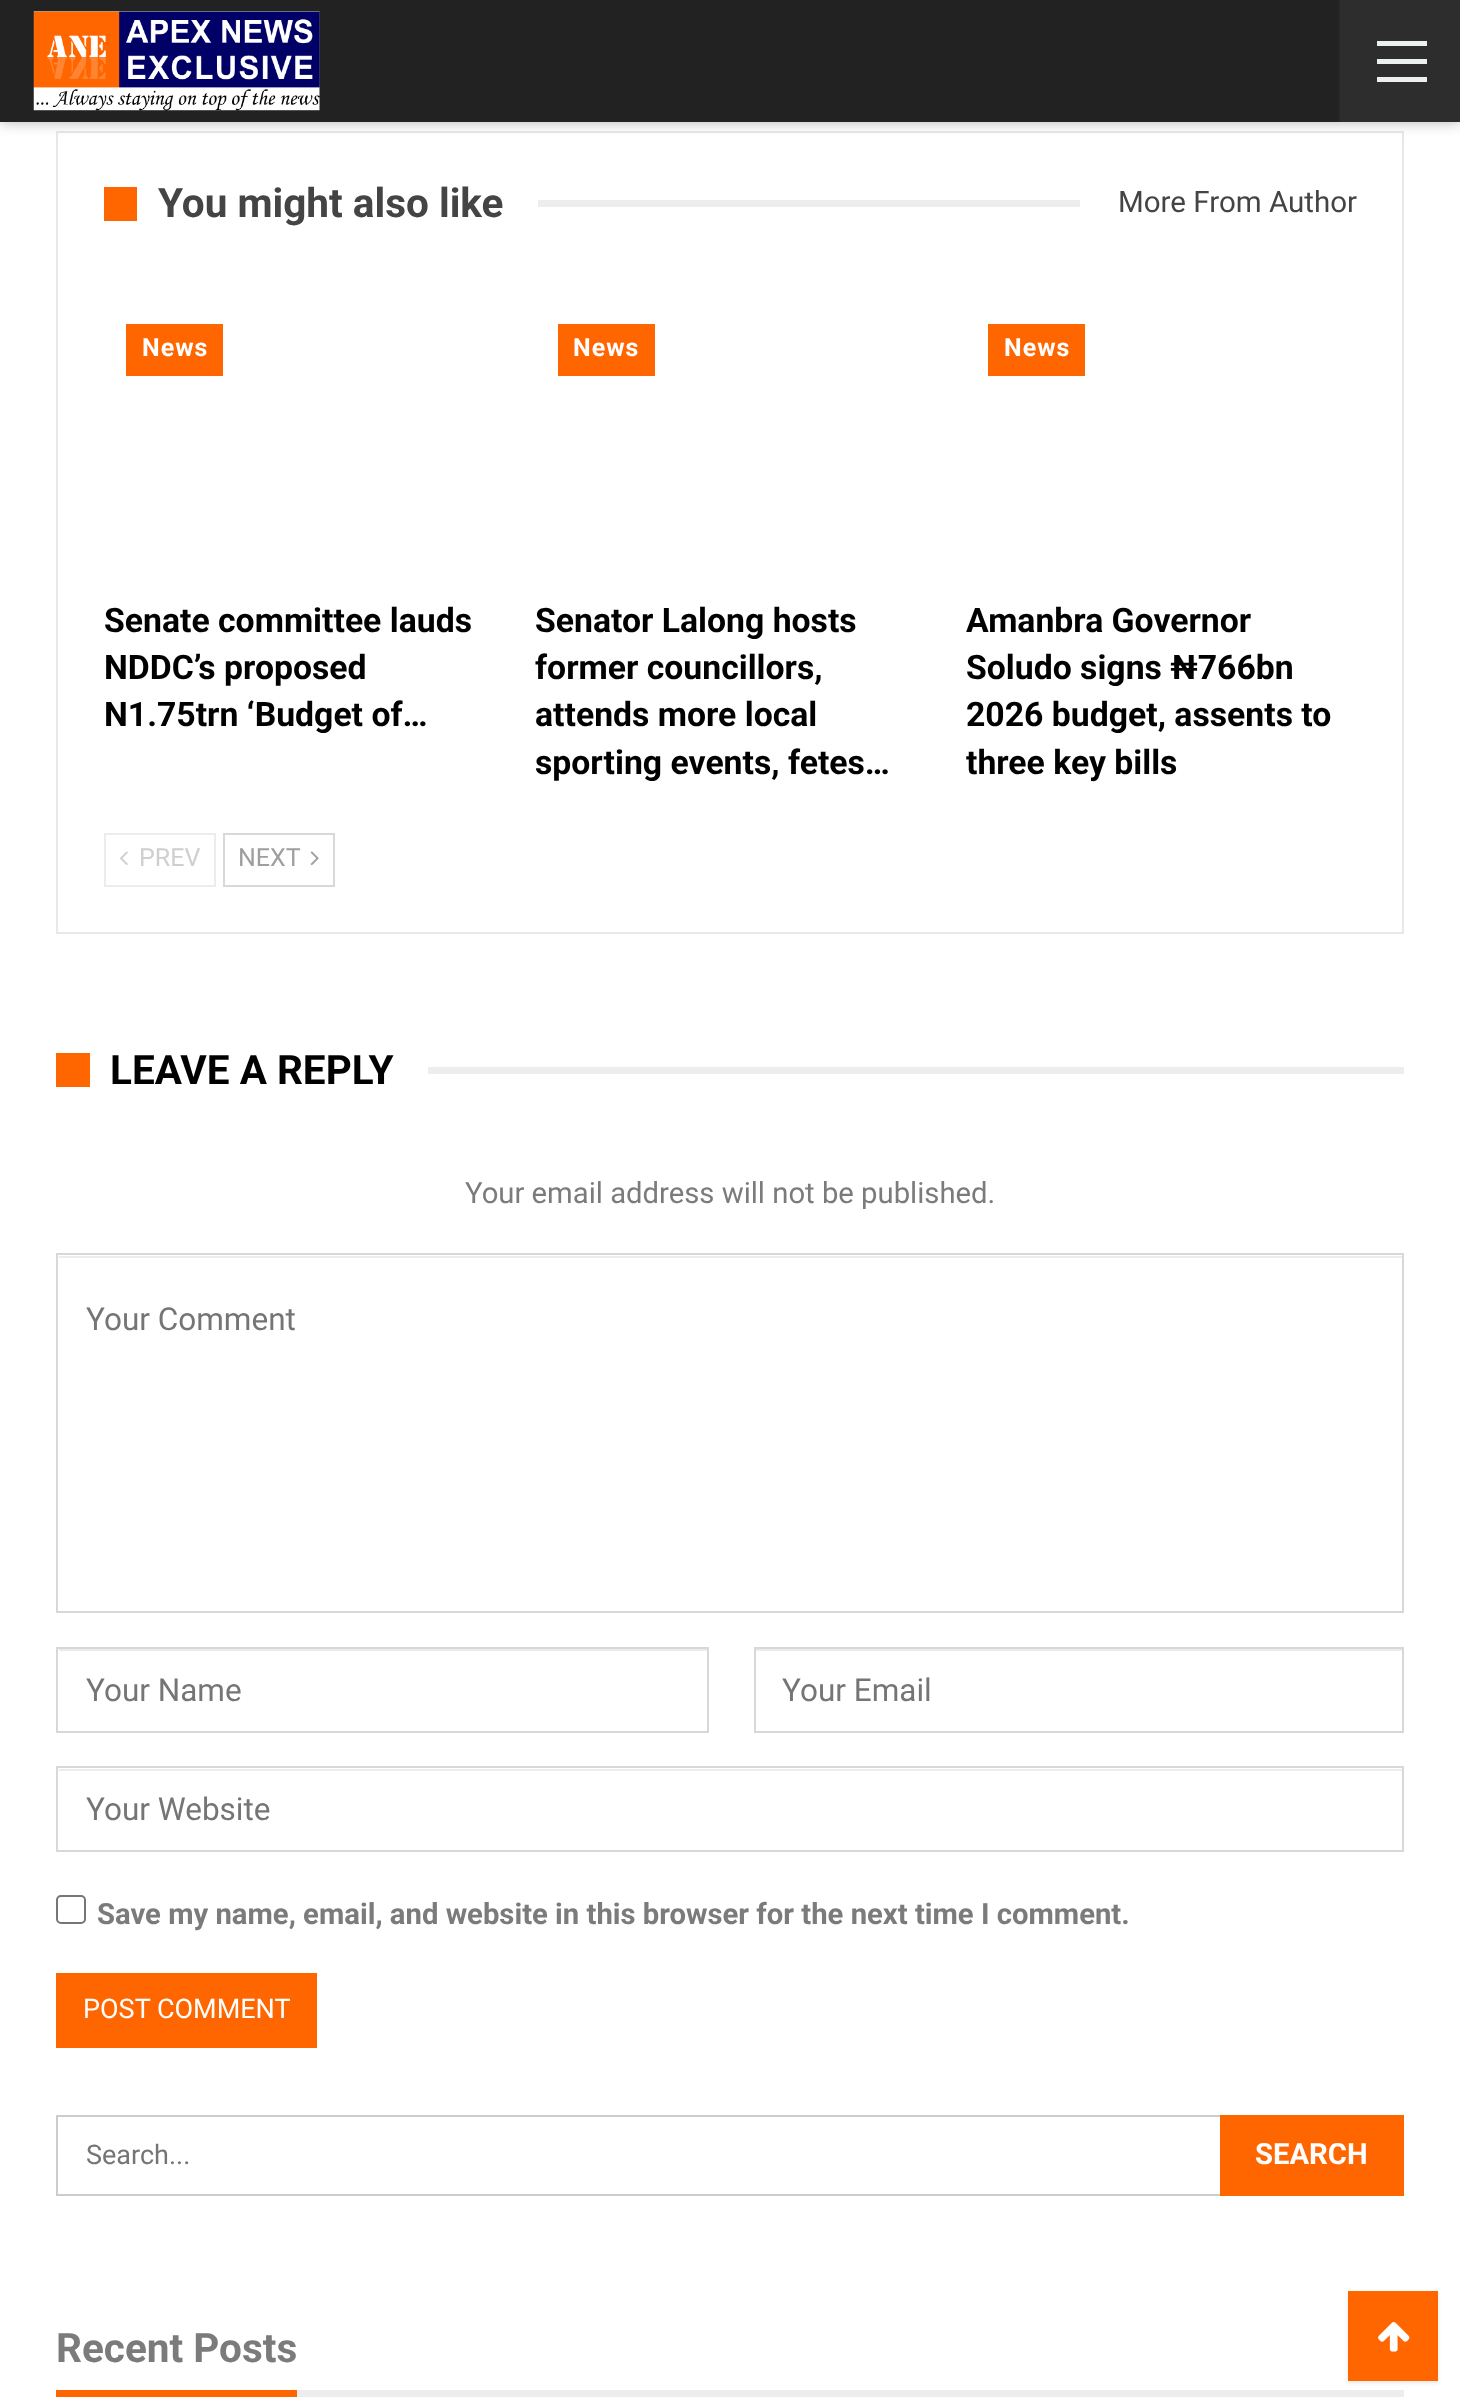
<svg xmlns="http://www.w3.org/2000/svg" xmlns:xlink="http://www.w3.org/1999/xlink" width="1460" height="2398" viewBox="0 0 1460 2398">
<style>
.cls-1{font:bold 40.5px Roboto;fill:#444444}
.cls-2{font:29.5px Roboto;fill:#444444}
.cls-3{font:bold 25px Roboto;letter-spacing:1px;fill:#ffffff}
.cls-4{font:bold 33.75px Roboto;fill:#000000}
.cls-5{font:25px Roboto;fill:#cfcfcf}
.cls-6{font:25px Roboto;fill:#9e9e9e}
.cls-7{font:bold 40.5px Roboto;fill:#000000}
.cls-8{font:29.25px Roboto;fill:#7b7b7b}
.cls-9{font:31.5px Roboto;fill:#757575}
.cls-10{font:bold 29.25px Roboto;fill:#7b7b7b}
.cls-11{font:27px Roboto;fill:#ffffff}
.cls-12{font:27px Roboto;fill:#757575}
.cls-13{font:bold 29.25px Roboto;fill:#ffffff}
.cls-14{font:bold 40.5px Roboto;fill:#7b7b7b}
</style>
<rect width="100%" height="100%" fill="#ffffff"/>
<rect fill="none" stroke="#e8e8e8" stroke-width="2" x="57" y="132" width="1346" height="801"/>
<rect fill="#000000" fill-opacity="0.3" filter="blur(7px)" x="0" y="0" width="1460" height="122"/>
<rect fill="#222222" x="0" y="0" width="1339" height="122"/>
<image xlink:href="image0.png" x="33" y="11" width="287" height="100"/>
<rect fill="#2d2d2d" x="1341" y="0" width="119" height="122"/>
<rect fill="#2a2a2a" x="1339" y="0" width="2" height="122"/>
<rect fill="#ecf0f1" x="1377" y="59" width="50" height="5"/>
<rect fill="#ecf0f1" x="1377" y="41" width="50" height="5"/>
<rect fill="#ecf0f1" x="1377" y="77" width="50" height="5"/>
<rect fill="#ff6600" x="104" y="187" width="33" height="34"/>
<rect fill="#ededed" x="538" y="200" width="542" height="7"/>
<rect fill="#ff6600" x="126" y="324" width="97" height="52"/>
<rect fill="#ff6600" x="558" y="324" width="97" height="52"/>
<rect fill="#ff6600" x="988" y="324" width="97" height="52"/>
<rect fill="none" stroke="#ececec" stroke-width="2" x="105" y="834" width="110" height="52"/>
<image xlink:href="image1.png" x="120" y="851" width="8" height="14"/>
<rect fill="none" stroke="#d8d8d8" stroke-width="2" x="224" y="834" width="110" height="52"/>
<image xlink:href="image2.png" x="310" y="851" width="9" height="15"/>
<rect fill="#ff6600" x="56" y="1053" width="34" height="34"/>
<rect fill="#ededed" x="428" y="1067" width="976" height="7"/>
<rect fill="#ececec" x="59" y="1256" width="1343" height="2"/>
<rect fill="none" stroke="#d8d8d8" stroke-width="2" x="57" y="1254" width="1346" height="358"/>
<rect fill="#ececec" x="59" y="1649" width="648" height="2"/>
<rect fill="none" stroke="#d8d8d8" stroke-width="2" x="57" y="1648" width="651" height="84"/>
<rect fill="#ececec" x="756" y="1649" width="646" height="2"/>
<rect fill="none" stroke="#d8d8d8" stroke-width="2" x="755" y="1648" width="648" height="84"/>
<rect fill="#ececec" x="59" y="1769" width="1343" height="2"/>
<rect fill="none" stroke="#d8d8d8" stroke-width="2" x="57" y="1767" width="1346" height="84"/>
<rect fill="none" stroke="#767676" stroke-width="2" x="57" y="1896" width="28" height="27" rx="4"/>
<rect fill="#ff6600" x="56" y="1973" width="261" height="75"/>
<rect fill="none" stroke="#cccccc" stroke-width="2" x="57" y="2116" width="1346" height="79"/>
<rect fill="#ff6600" x="1220" y="2115" width="184" height="81"/>
<rect fill="#ff6600" x="56" y="2390" width="241" height="7"/>
<rect fill="#ededed" x="297" y="2390" width="1107" height="7"/>
<rect fill="#000000" fill-opacity="0.09" filter="blur(2px)" x="1348" y="2293" width="90" height="90"/>
<rect fill="#ff6600" x="1348" y="2291" width="90" height="90"/>
<image xlink:href="image3.png" x="1378" y="2322" width="32" height="30"/>
<text class="cls-1" x="158" y="217">You might also like</text>
<text class="cls-2" x="1118" y="212">More From Author</text>
<text class="cls-3" x="142" y="356">News</text>
<text class="cls-4"><tspan x="104" y="632">Senate committee lauds</tspan><tspan x="104" y="679">NDDC’s proposed</tspan><tspan x="104" y="726">N1.75trn ‘Budget of…</tspan></text>
<text class="cls-3" x="573" y="356">News</text>
<text class="cls-4"><tspan x="535" y="632">Senator Lalong hosts</tspan><tspan x="535" y="679">former councillors,</tspan><tspan x="535" y="726">attends more local</tspan><tspan x="535" y="774">sporting events, fetes…</tspan></text>
<text class="cls-3" x="1004" y="356">News</text>
<text class="cls-4"><tspan x="966" y="632">Amanbra Governor</tspan><tspan x="966" y="679">Soludo signs ₦766bn</tspan><tspan x="966" y="726">2026 budget, assents to</tspan><tspan x="966" y="774">three key bills</tspan></text>
<text class="cls-5" x="139" y="866">PREV</text>
<text class="cls-6" x="238" y="866">NEXT</text>
<text class="cls-7" x="110" y="1084">LEAVE A REPLY</text>
<text class="cls-8" x="465" y="1203">Your email address will not be published.</text>
<text class="cls-9" x="86" y="1330">Your Comment</text>
<text class="cls-9" x="86" y="1701">Your Name</text>
<text class="cls-9" x="782" y="1701">Your Email</text>
<text class="cls-9" x="86" y="1820">Your Website</text>
<text class="cls-10" x="97" y="1924">Save my name, email, and website in this browser for the next time I comment.</text>
<text class="cls-11" x="83" y="2018">POST COMMENT</text>
<text class="cls-12" x="86" y="2164">Search...</text>
<text class="cls-13" x="1255" y="2164">SEARCH</text>
<text class="cls-14" x="56" y="2362">Recent Posts</text>
</svg>
